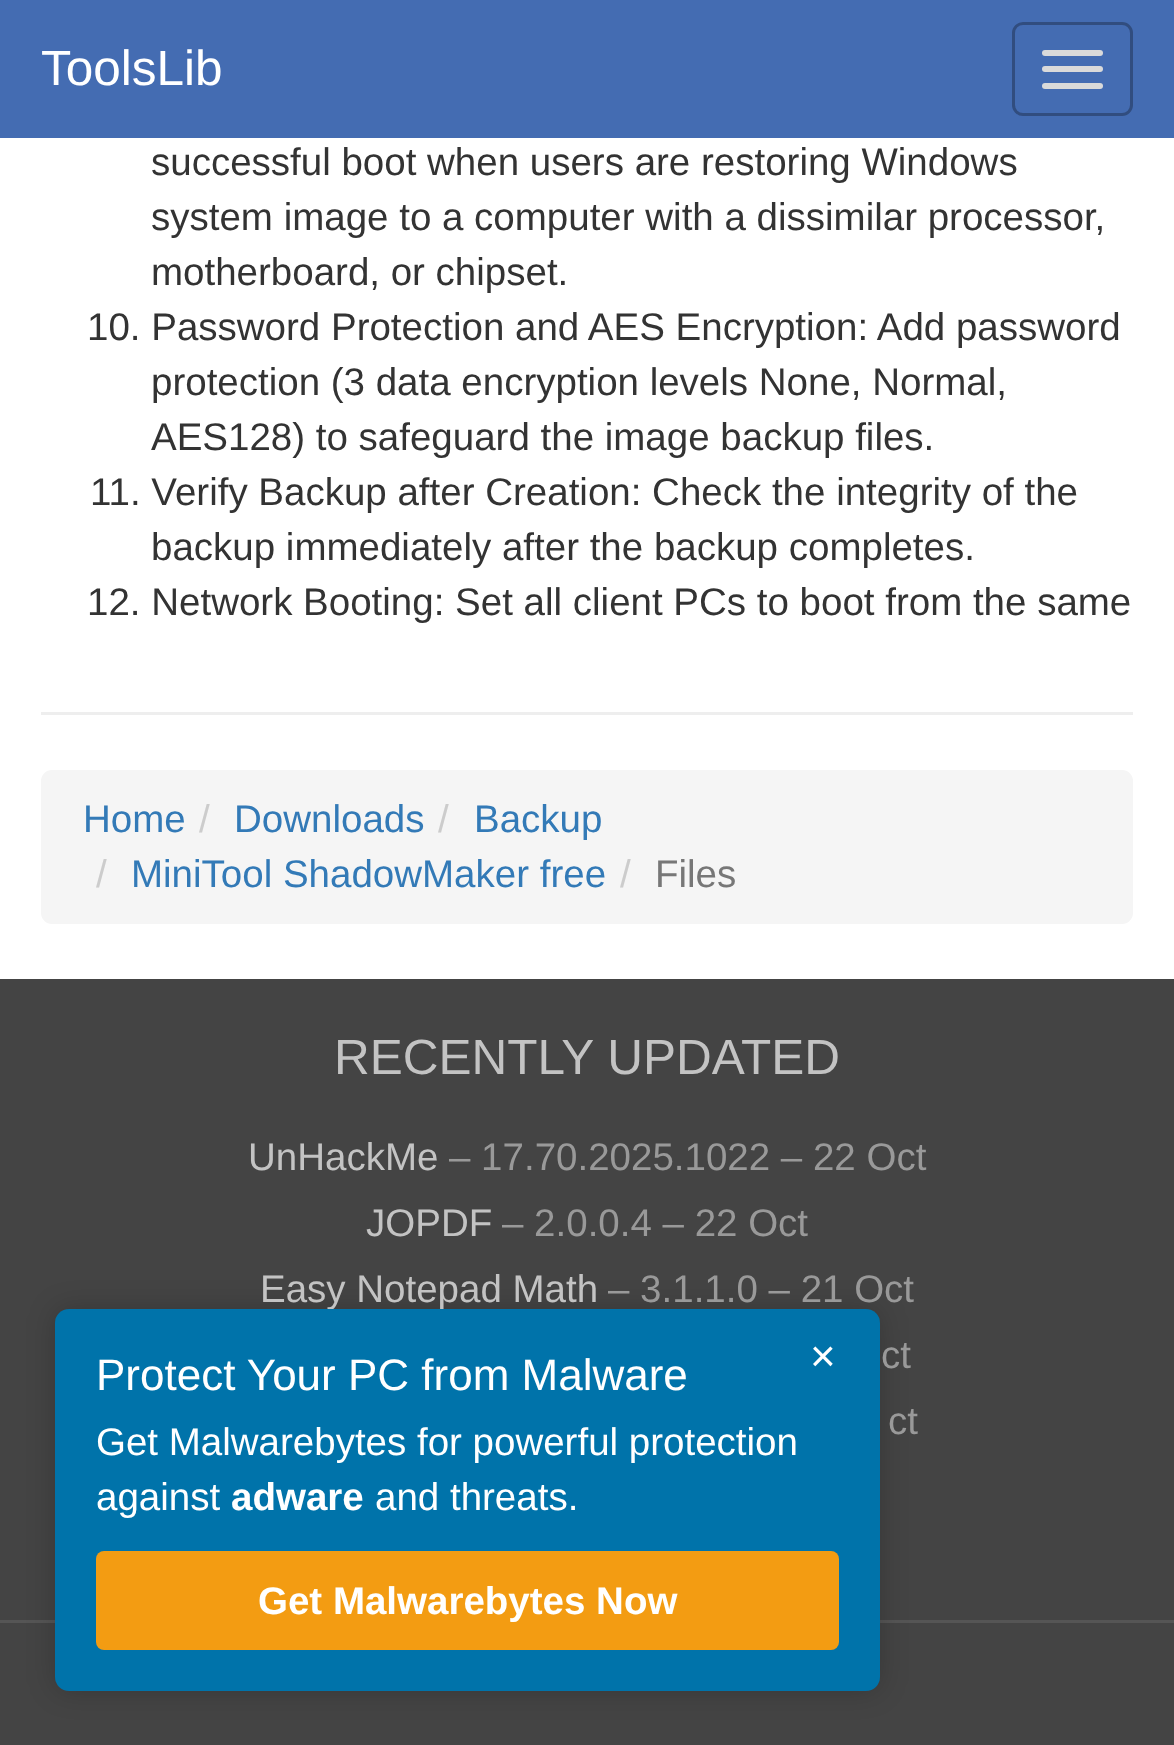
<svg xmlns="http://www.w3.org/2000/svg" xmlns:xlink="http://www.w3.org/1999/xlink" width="1174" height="1745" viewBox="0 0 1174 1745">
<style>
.cls-1{font:49.5px Liberation Sans;fill:#ffffff}
.cls-2{font:38.5px Liberation Sans;fill:#333333}
.cls-3{font:38.5px Liberation Sans;fill:#337ab7}
.cls-4{font:38.5px Liberation Sans;fill:#cccccc}
.cls-5{font:38.5px Liberation Sans;fill:#777777}
.cls-6{font:49.5px Liberation Sans;fill:#c3c3c3}
.cls-7{font:38.5px Liberation Sans;fill:#c3c3c3}
.cls-8{font:38.5px Liberation Sans;fill:#999999}
.cls-9{font:44px Liberation Sans;fill:#ffffff}
.cls-10{font:38.5px Liberation Sans;fill:#ffffff}
.cls-11{font:bold 38.5px Liberation Sans;fill:#ffffff}
</style>
<rect width="100%" height="100%" fill="#ffffff"/>
<rect fill="#446cb2" x="0" y="0" width="1174" height="138"/>
<rect fill="none" stroke="#314d7f" stroke-width="3" x="1013.5" y="23.5" width="118" height="91" rx="9.5"/>
<rect fill="#dadada" x="1042" y="50" width="61" height="6" rx="3"/>
<rect fill="#dadada" x="1042" y="66" width="61" height="6" rx="3"/>
<rect fill="#dadada" x="1042" y="83" width="61" height="6" rx="3"/>
<rect fill="#eeeeee" x="41" y="712" width="1092" height="3"/>
<rect fill="#f5f5f5" x="41" y="770" width="1092" height="154" rx="11"/>
<rect fill="#444444" x="0" y="979" width="1174" height="766"/>
<rect fill="#555555" x="0" y="1620" width="1174" height="3"/>
<rect fill="#000000" fill-opacity="0.2" filter="blur(14px)" x="55" y="1309" width="825" height="382" rx="14"/>
<text class="cls-1" x="41" y="85">ToolsLib</text>
<text class="cls-2"><tspan x="151" y="175">successful boot when users are restoring Windows</tspan><tspan x="151" y="230">system image to a computer with a dissimilar processor,</tspan><tspan x="151" y="285">motherboard, or chipset.</tspan></text>
<text class="cls-2" x="87" y="340">10. Password Protection and AES Encryption: Add password</text>
<text class="cls-2"><tspan x="151" y="395">protection (3 data encryption levels None, Normal,</tspan><tspan x="151" y="450">AES128) to safeguard the image backup files.</tspan></text>
<text class="cls-2" x="90" y="505">11. Verify Backup after Creation: Check the integrity of the</text>
<text class="cls-2" x="151" y="560">backup immediately after the backup completes.</text>
<text class="cls-2" x="87" y="615">12. Network Booting: Set all client PCs to boot from the same</text>
<text class="cls-3" x="83" y="832">Home</text>
<text class="cls-4" x="199" y="832">/</text>
<text class="cls-3" x="234" y="832">Downloads</text>
<text class="cls-4" x="438" y="832">/</text>
<text class="cls-3" x="474" y="832">Backup</text>
<text class="cls-4" x="96" y="887">/</text>
<text class="cls-3" x="131" y="887">MiniTool ShadowMaker free</text>
<text class="cls-4" x="620" y="887">/</text>
<text class="cls-5" x="655" y="887">Files</text>
<text class="cls-6" x="334" y="1074">RECENTLY UPDATED</text>
<text class="cls-7" x="248" y="1170">UnHackMe</text>
<text class="cls-8" x="449" y="1170">– 17.70.2025.1022 – 22 Oct</text>
<text class="cls-7" x="366" y="1236">JOPDF</text>
<text class="cls-8" x="502" y="1236">– 2.0.0.4 – 22 Oct</text>
<text class="cls-7" x="260" y="1302">Easy Notepad Math</text>
<text class="cls-8" x="608" y="1302">– 3.1.1.0 – 21 Oct</text>
<text class="cls-8" x="881" y="1368">ct</text>
<text class="cls-8" x="888" y="1434">ct</text>
<rect fill="#0073aa" x="55" y="1309" width="825" height="382" rx="14"/>
<text class="cls-9" x="96" y="1390">Protect Your PC from Malware</text>
<text class="cls-9" x="810" y="1371">×</text>
<text class="cls-10"><tspan x="96" y="1455">Get Malwarebytes for powerful protection</tspan><tspan x="96" y="1510">against</tspan></text>
<text class="cls-11" x="231" y="1510">adware</text>
<text class="cls-10" x="375" y="1510">and threats.</text>
<rect fill="#f39c12" x="96" y="1551" width="743" height="99" rx="8"/>
<text class="cls-11" x="258" y="1614">Get Malwarebytes Now</text>
</svg>
